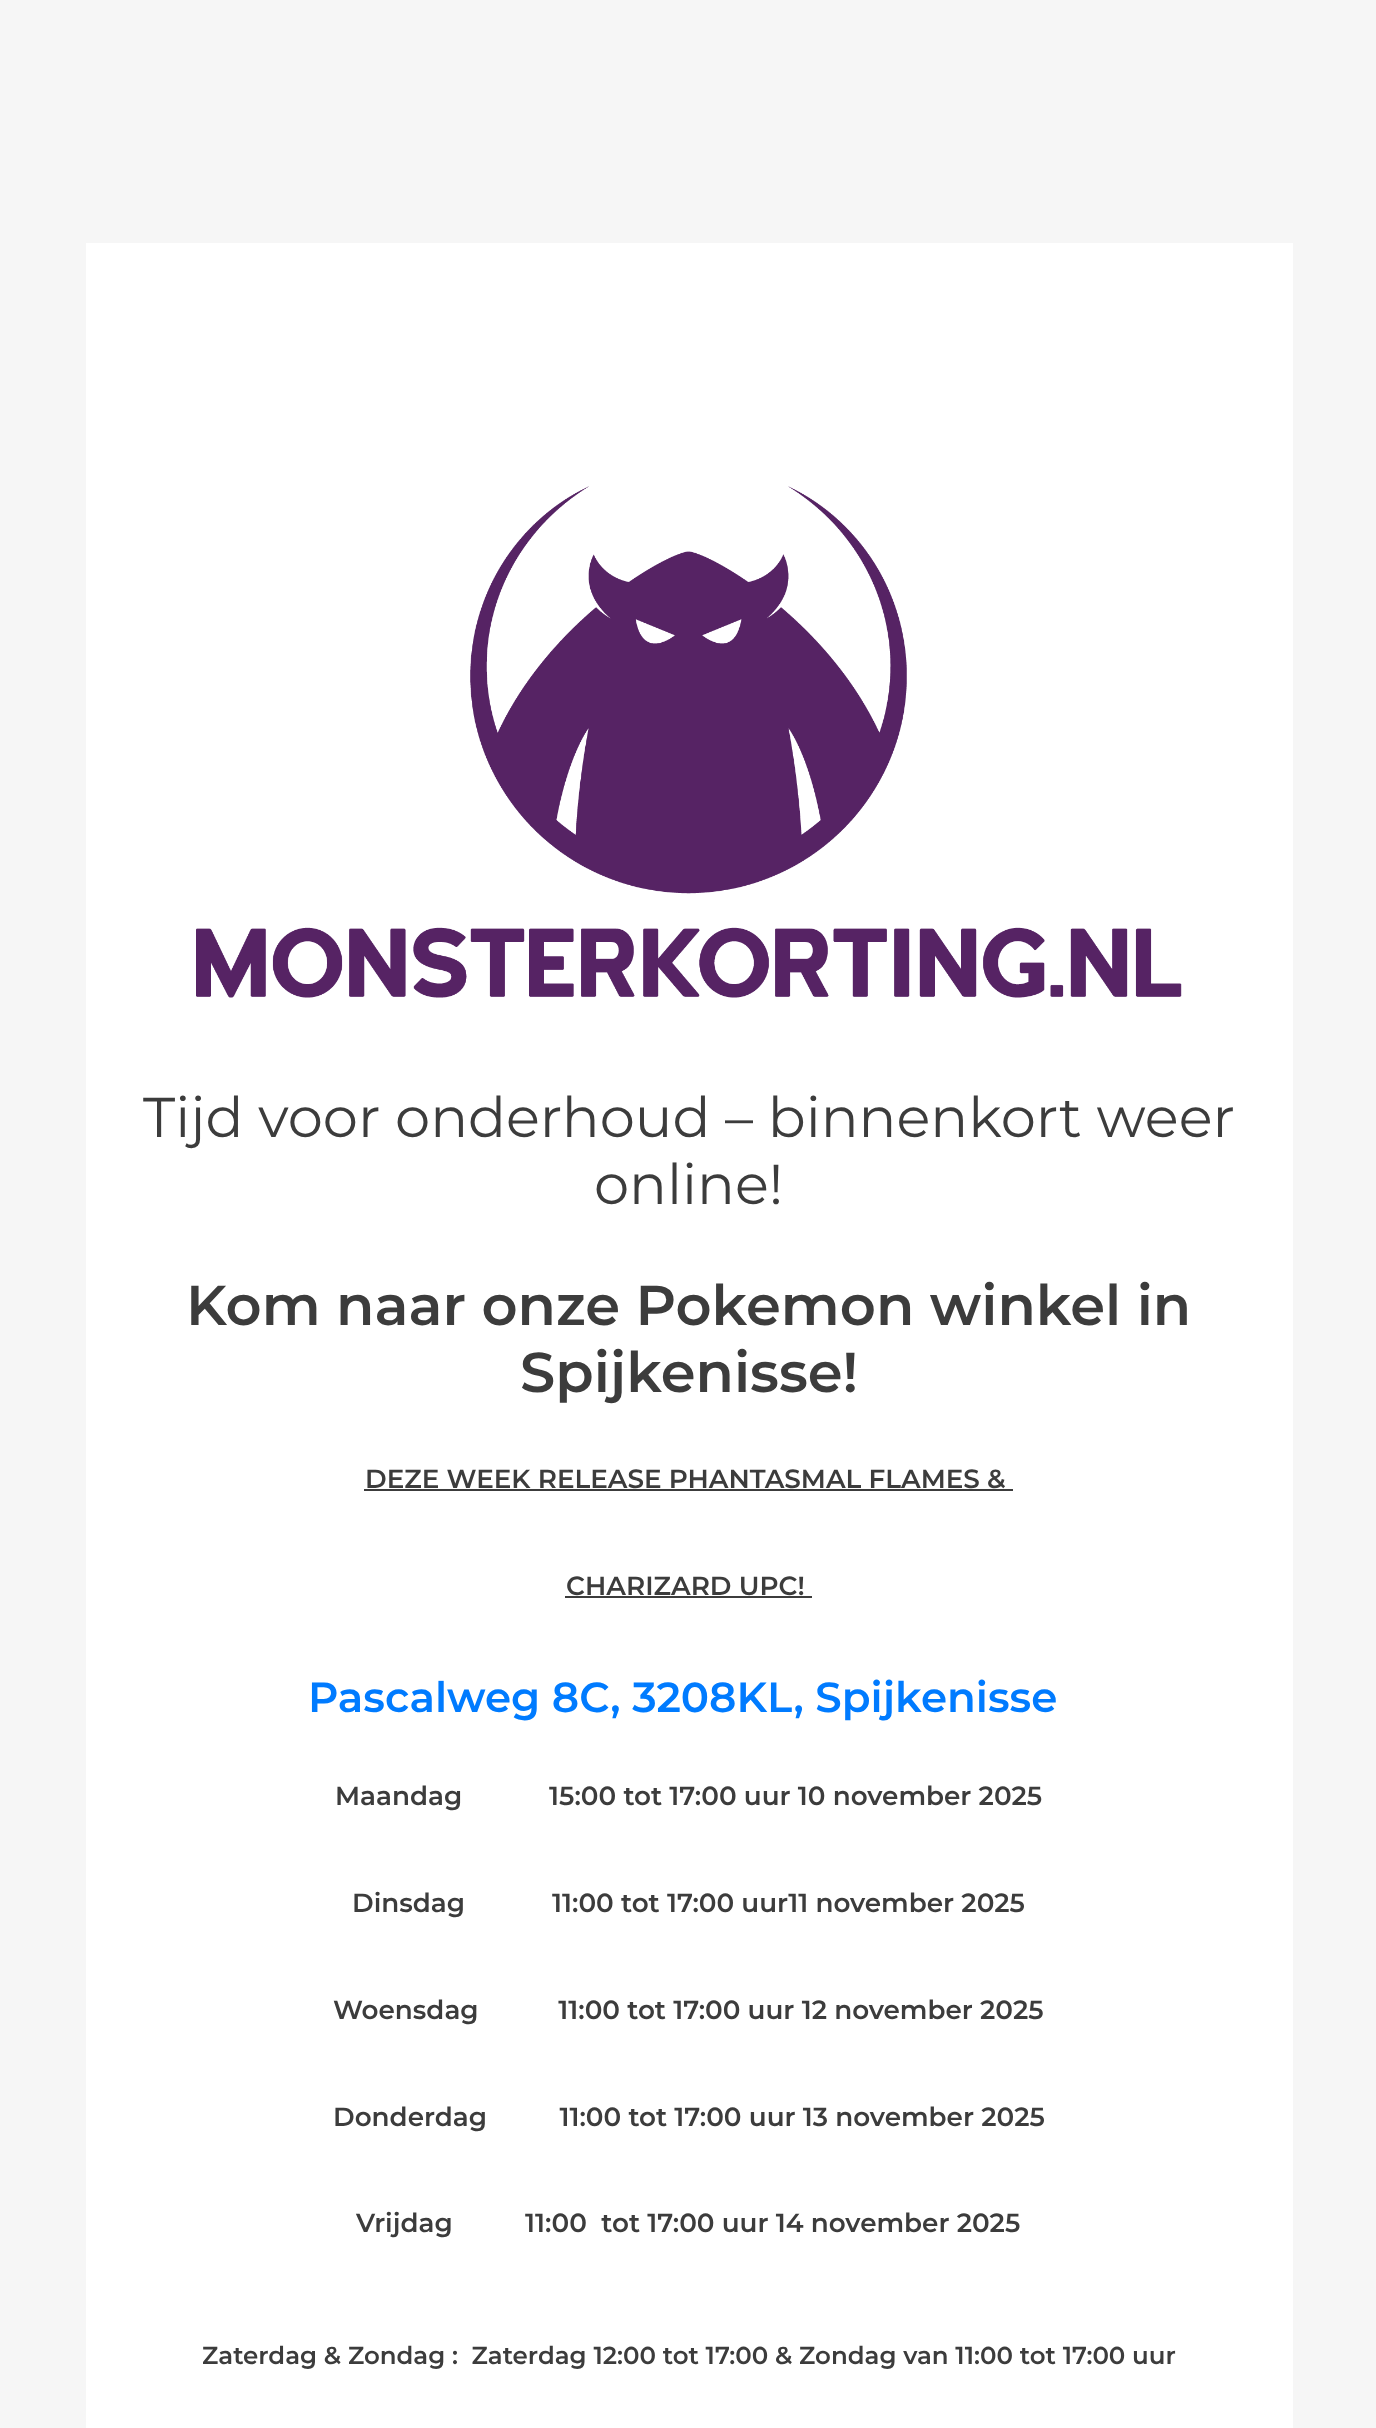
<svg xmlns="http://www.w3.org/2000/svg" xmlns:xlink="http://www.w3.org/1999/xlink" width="1376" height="2428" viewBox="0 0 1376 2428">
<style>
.cls-1{font:56px Montserrat;fill:#3c3c3c}
.cls-2{font:600 56px Montserrat;fill:#3c3c3c}
.cls-3{font:600 26.25px Montserrat;fill:#3c3c3c}
.cls-4{font:600 42px Montserrat;fill:#007bff}
.cls-5{font:600 24.5px Montserrat;fill:#3c3c3c}
</style>
<rect width="100%" height="100%" fill="#f6f6f6"/>
<rect fill="#ffffff" x="86" y="243" width="1207" height="2185"/>
<image xlink:href="image0.png" x="196" y="486" width="986" height="512"/>
<rect fill="#3c3c3c" x="364" y="1489" width="649" height="2"/>
<rect fill="#3c3c3c" x="565" y="1596" width="247" height="2"/>
<text class="cls-1" x="143" y="1137">Tijd voor onderhoud – binnenkort weer</text>
<text class="cls-1" x="594" y="1204">online!</text>
<text class="cls-2" x="186" y="1325">Kom naar onze Pokemon winkel in</text>
<text class="cls-2" x="520" y="1392">Spijkenisse!</text>
<text class="cls-3" x="365" y="1488">DEZE WEEK RELEASE PHANTASMAL FLAMES &amp;</text>
<text class="cls-3" x="566" y="1595">CHARIZARD UPC!</text>
<text class="cls-4" x="308" y="1712">Pascalweg 8C, 3208KL, Spijkenisse</text>
<text class="cls-3" xml:space="preserve" x="335" y="1805">Maandag            15:00 tot 17:00 uur 10 november 2025</text>
<text class="cls-3" x="352" y="1912">Dinsdag</text>
<text class="cls-3" x="552" y="1912">11:00 tot 17:00 uur11 november 2025</text>
<text class="cls-3" xml:space="preserve" x="333" y="2019">Woensdag           11:00 tot 17:00 uur 12 november 2025</text>
<text class="cls-3" xml:space="preserve" x="333" y="2126">Donderdag          11:00 tot 17:00 uur 13 november 2025</text>
<text class="cls-3" xml:space="preserve" x="356" y="2232">Vrijdag          11:00  tot 17:00 uur 14 november 2025</text>
<text class="cls-5" xml:space="preserve" x="202" y="2364">Zaterdag &amp; Zondag :  Zaterdag 12:00 tot 17:00 &amp; Zondag van 11:00 tot 17:00 uur</text>
</svg>
